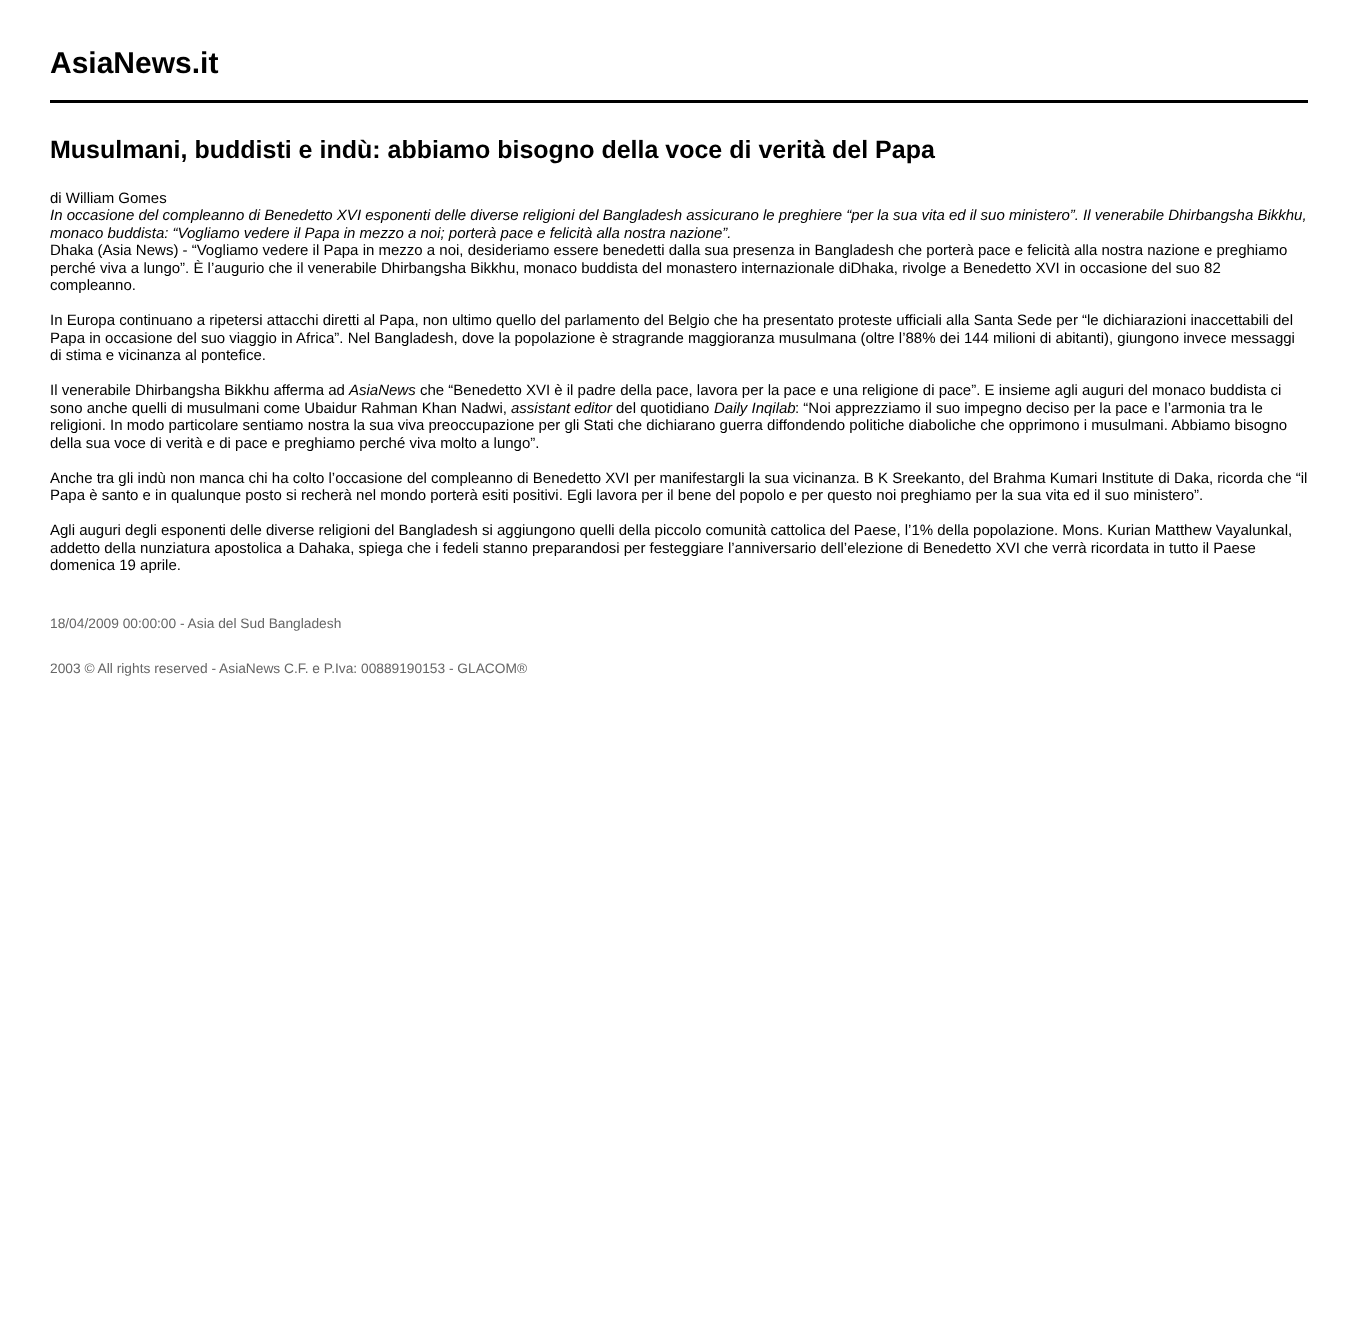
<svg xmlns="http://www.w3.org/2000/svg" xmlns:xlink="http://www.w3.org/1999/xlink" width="1357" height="1327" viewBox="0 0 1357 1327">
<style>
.cls-1{font:bold 30px Liberation Sans;fill:#000000}
.cls-2{font:bold 25px Liberation Sans;fill:#000000}
.cls-3{font:15px Liberation Sans;fill:#000000}
.cls-4{font:italic 15px Liberation Sans;fill:#000000}
.cls-5{font:13.75px Liberation Sans;fill:#666666}
</style>
<rect width="100%" height="100%" fill="#ffffff"/>
<rect fill="#000000" x="50" y="100" width="1258" height="3"/>
<text class="cls-1" x="50" y="73">AsiaNews.it</text>
<text class="cls-2" x="50" y="158">Musulmani, buddisti e indù: abbiamo bisogno della voce di verità del Papa</text>
<text class="cls-3" x="50" y="203">di William Gomes</text>
<text class="cls-4"><tspan x="50" y="220">In occasione del compleanno di Benedetto XVI esponenti delle diverse religioni del Bangladesh assicurano le preghiere “per la sua vita ed il suo ministero”. Il venerabile Dhirbangsha Bikkhu,</tspan><tspan x="50" y="238">monaco buddista: “Vogliamo vedere il Papa in mezzo a noi; porterà pace e felicità alla nostra nazione”.</tspan></text>
<text class="cls-3"><tspan x="50" y="255">Dhaka (Asia News) - “Vogliamo vedere il Papa in mezzo a noi, desideriamo essere benedetti dalla sua presenza in Bangladesh che porterà pace e felicità alla nostra nazione e preghiamo</tspan><tspan x="50" y="273">perché viva a lungo”. È l’augurio che il venerabile Dhirbangsha Bikkhu, monaco buddista del monastero internazionale diDhaka, rivolge a Benedetto XVI in occasione del suo 82</tspan><tspan x="50" y="290">compleanno.</tspan></text>
<text class="cls-3"><tspan x="50" y="325">In Europa continuano a ripetersi attacchi diretti al Papa, non ultimo quello del parlamento del Belgio che ha presentato proteste ufficiali alla Santa Sede per “le dichiarazioni inaccettabili del</tspan><tspan x="50" y="343">Papa in occasione del suo viaggio in Africa”. Nel Bangladesh, dove la popolazione è stragrande maggioranza musulmana (oltre l’88% dei 144 milioni di abitanti), giungono invece messaggi</tspan><tspan x="50" y="360">di stima e vicinanza al pontefice.</tspan></text>
<text class="cls-3" x="50" y="395">Il venerabile Dhirbangsha Bikkhu afferma ad</text>
<text class="cls-4" x="349" y="395">AsiaNews</text>
<text class="cls-3" x="420" y="395">che “Benedetto XVI è il padre della pace, lavora per la pace e una religione di pace”. E insieme agli auguri del monaco buddista ci</text>
<text class="cls-3" x="50" y="413">sono anche quelli di musulmani come Ubaidur Rahman Khan Nadwi,</text>
<text class="cls-4" x="511" y="413">assistant editor</text>
<text class="cls-3" x="616" y="413">del quotidiano</text>
<text class="cls-4" x="714" y="413">Daily Inqilab</text>
<text class="cls-3" x="795" y="413">: “Noi apprezziamo il suo impegno deciso per la pace e l’armonia tra le</text>
<text class="cls-3"><tspan x="50" y="430">religioni. In modo particolare sentiamo nostra la sua viva preoccupazione per gli Stati che dichiarano guerra diffondendo politiche diaboliche che opprimono i musulmani. Abbiamo bisogno</tspan><tspan x="50" y="448">della sua voce di verità e di pace e preghiamo perché viva molto a lungo”.</tspan></text>
<text class="cls-3"><tspan x="50" y="483">Anche tra gli indù non manca chi ha colto l’occasione del compleanno di Benedetto XVI per manifestargli la sua vicinanza. B K Sreekanto, del Brahma Kumari Institute di Daka, ricorda che “il</tspan><tspan x="50" y="500">Papa è santo e in qualunque posto si recherà nel mondo porterà esiti positivi. Egli lavora per il bene del popolo e per questo noi preghiamo per la sua vita ed il suo ministero”.</tspan></text>
<text class="cls-3"><tspan x="50" y="535">Agli auguri degli esponenti delle diverse religioni del Bangladesh si aggiungono quelli della piccolo comunità cattolica del Paese, l’1% della popolazione. Mons. Kurian Matthew Vayalunkal,</tspan><tspan x="50" y="553">addetto della nunziatura apostolica a Dahaka, spiega che i fedeli stanno preparandosi per festeggiare l’anniversario dell’elezione di Benedetto XVI che verrà ricordata in tutto il Paese</tspan><tspan x="50" y="570">domenica 19 aprile.</tspan></text>
<text class="cls-5" x="50" y="628">18/04/2009 00:00:00 - Asia del Sud Bangladesh</text>
<text class="cls-5" x="50" y="673">2003 © All rights reserved - AsiaNews C.F. e P.Iva: 00889190153 - GLACOM®</text>
</svg>
